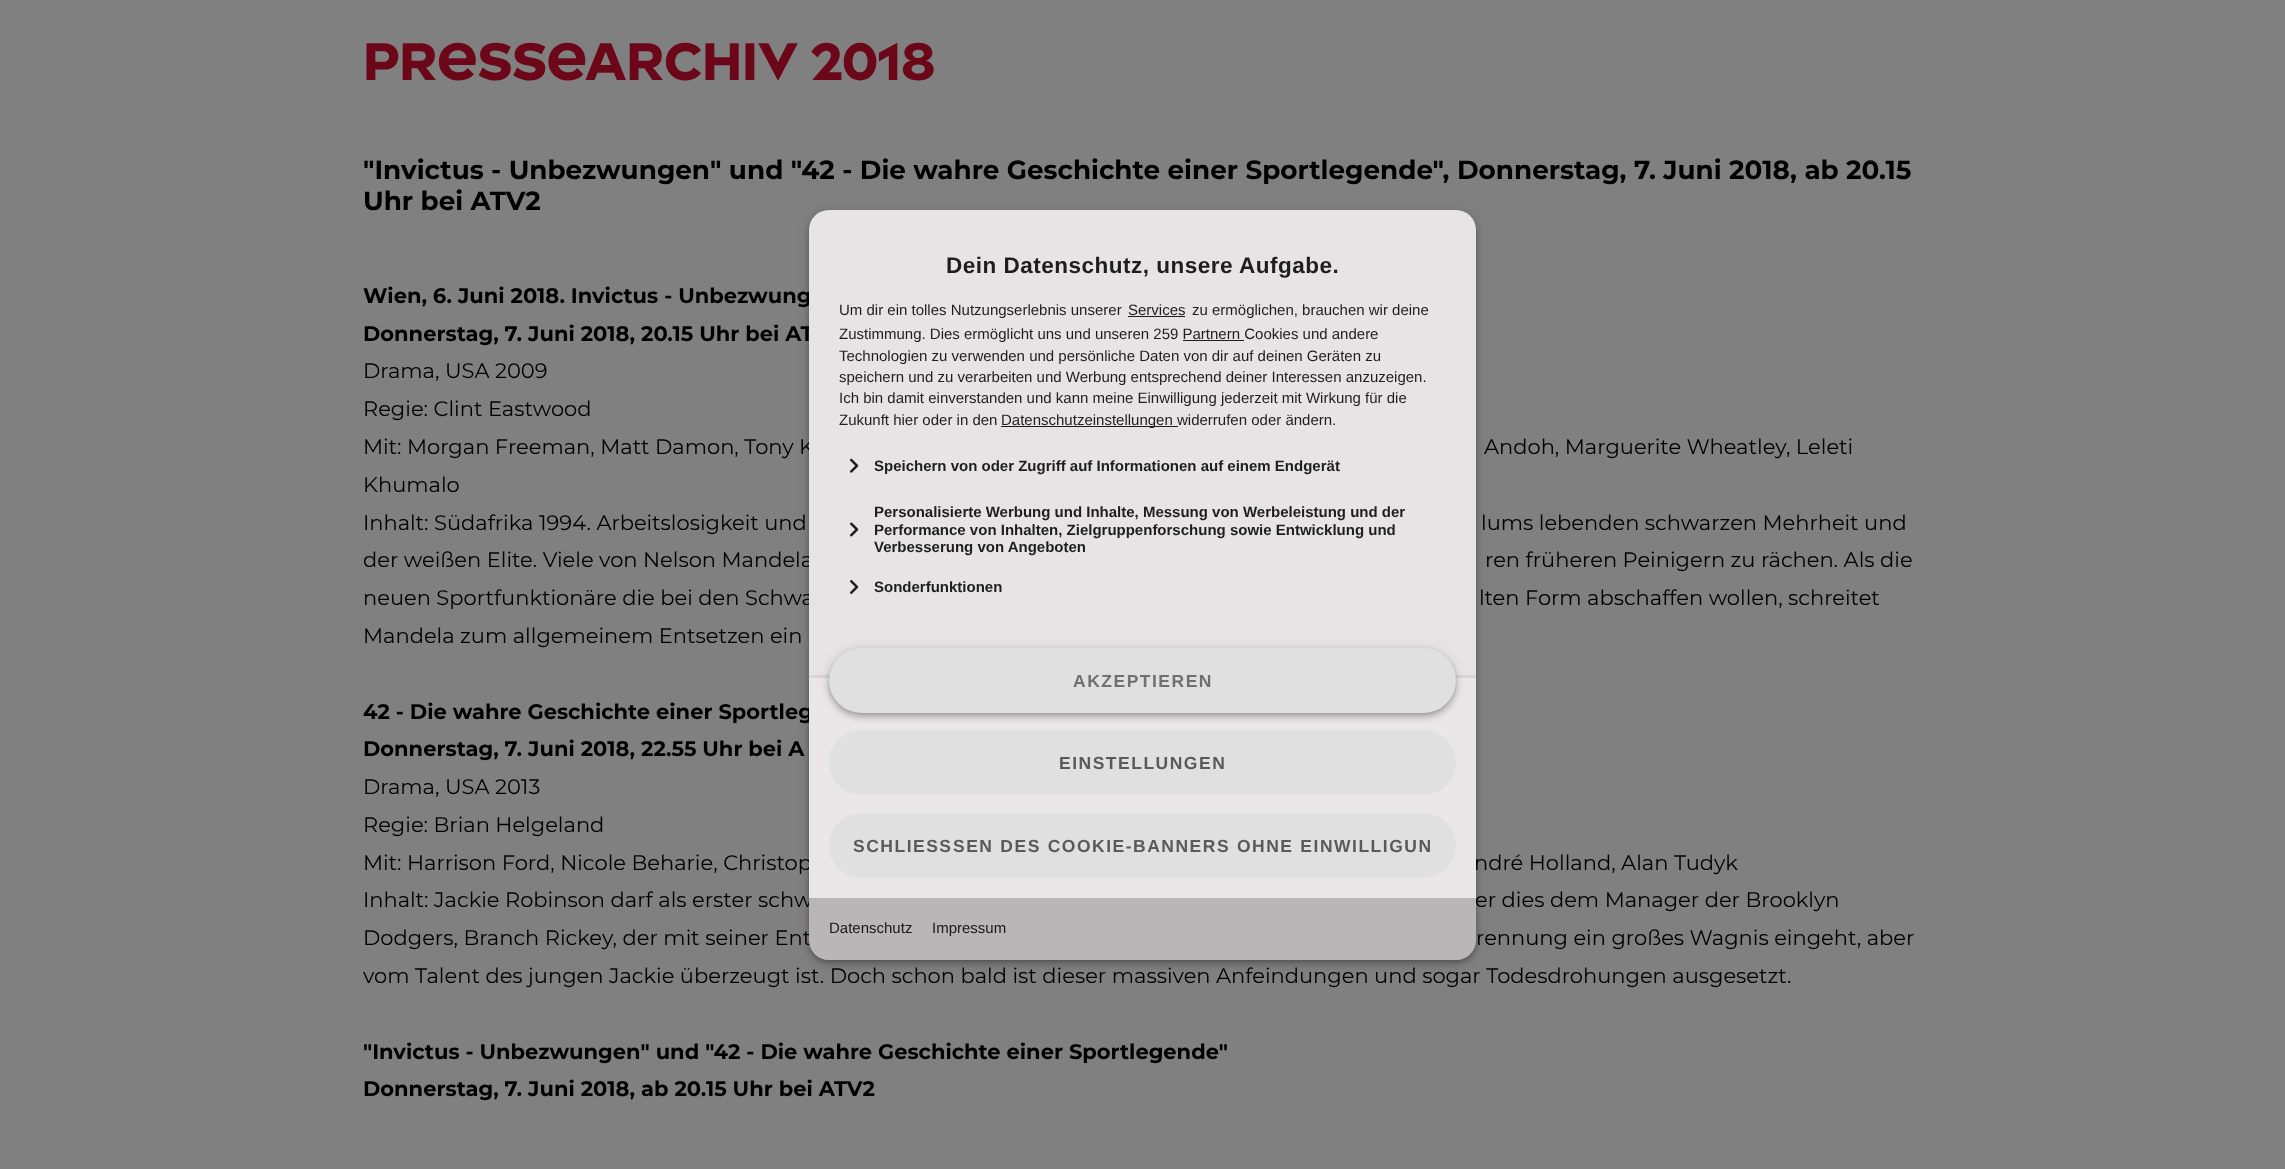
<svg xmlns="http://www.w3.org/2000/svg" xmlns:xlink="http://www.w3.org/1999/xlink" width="2285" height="1169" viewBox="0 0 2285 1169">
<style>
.cls-1{font:800 52.5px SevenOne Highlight;fill:#6c0719}
.cls-2{font:bold 26.25px Montserrat;fill:#000000}
.cls-3{font:bold 21px Montserrat;fill:#000000}
.cls-4{font:21px Montserrat;fill:#000000}
.cls-5{font:bold 22.5px Liberation Sans;letter-spacing:0.5px;fill:#1e1e1e}
.cls-6{font:15px Liberation Sans;fill:#1e1e1e}
.cls-7{font:bold 15px Liberation Sans;fill:#1e1e1e}
.cls-8{font:bold 17.5px Liberation Sans;letter-spacing:1.5px;fill:#707070}
.cls-9{font:bold 17.5px Liberation Sans;letter-spacing:1.5px;fill:#5a5a5a}
.cls-10{font:15px Liberation Sans;fill:#181818}
</style>
<rect width="100%" height="100%" fill="#808080"/>
<rect fill="#000000" fill-opacity="0.2" filter="blur(2.5px)" x="810" y="214" width="665" height="747" rx="19"/>
<rect fill="#000000" fill-opacity="0.12" filter="blur(6px)" x="809" y="211" width="667" height="750" rx="20"/>
<rect fill="#000000" fill-opacity="0.14" filter="blur(3px)" x="809" y="215" width="667" height="750" rx="20"/>
<text class="cls-1" x="363" y="80">Pressearchiv 2018</text>
<text class="cls-2"><tspan x="363" y="179">"Invictus - Unbezwungen" und "42 - Die wahre Geschichte einer Sportlegende", Donnerstag, 7. Juni 2018, ab 20.15</tspan><tspan x="363" y="210">Uhr bei ATV2</tspan></text>
<text class="cls-3"><tspan x="363" y="303">Wien, 6. Juni 2018. Invictus - Unbezwung</tspan><tspan x="363" y="341">Donnerstag, 7. Juni 2018, 20.15 Uhr bei AT</tspan></text>
<text class="cls-4"><tspan x="363" y="378">Drama, USA 2009</tspan><tspan x="363" y="416">Regie: Clint Eastwood</tspan><tspan x="363" y="454">Mit: Morgan Freeman, Matt Damon, Tony K</tspan></text>
<text class="cls-4" x="1484" y="454">Andoh, Marguerite Wheatley, Leleti</text>
<text class="cls-4"><tspan x="363" y="492">Khumalo</tspan><tspan x="363" y="530">Inhalt: Südafrika 1994. Arbeitslosigkeit und</tspan></text>
<text class="cls-4" x="1481" y="530">lums lebenden schwarzen Mehrheit und</text>
<text class="cls-4" x="363" y="567">der weißen Elite. Viele von Nelson Mandela</text>
<text class="cls-4" x="1485" y="567">ren früheren Peinigern zu rächen. Als die</text>
<text class="cls-4" x="363" y="605">neuen Sportfunktionäre die bei den Schwa</text>
<text class="cls-4" x="1479" y="605">lten Form abschaffen wollen, schreitet</text>
<text class="cls-4" x="363" y="643">Mandela zum allgemeinem Entsetzen ein</text>
<text class="cls-3"><tspan x="363" y="719">42 - Die wahre Geschichte einer Sportleg</tspan><tspan x="363" y="756">Donnerstag, 7. Juni 2018, 22.55 Uhr bei A</tspan></text>
<text class="cls-4"><tspan x="363" y="794">Drama, USA 2013</tspan><tspan x="363" y="832">Regie: Brian Helgeland</tspan><tspan x="363" y="870">Mit: Harrison Ford, Nicole Beharie, Christop</tspan></text>
<text class="cls-4" x="1474" y="870">ndré Holland, Alan Tudyk</text>
<text class="cls-4" x="363" y="907">Inhalt: Jackie Robinson darf als erster schw</text>
<text class="cls-4" x="1475" y="907">er dies dem Manager der Brooklyn</text>
<text class="cls-4" x="363" y="945">Dodgers, Branch Rickey, der mit seiner Ent</text>
<text class="cls-4" x="1476" y="945">rennung ein großes Wagnis eingeht, aber</text>
<text class="cls-4" x="363" y="983">vom Talent des jungen Jackie überzeugt ist. Doch schon bald ist dieser massiven Anfeindungen und sogar Todesdrohungen ausgesetzt.</text>
<text class="cls-3"><tspan x="363" y="1059">"Invictus - Unbezwungen" und "42 - Die wahre Geschichte einer Sportlegende"</tspan><tspan x="363" y="1096">Donnerstag, 7. Juni 2018, ab 20.15 Uhr bei ATV2</tspan></text>
<rect fill="#e8e4e5" x="809" y="210" width="667" height="750" rx="20"/>
<text class="cls-5" x="946" y="273">Dein Datenschutz, unsere Aufgabe.</text>
<text class="cls-6" x="839" y="315">Um dir ein tolles Nutzungserlebnis unserer</text>
<text class="cls-6" x="1128" y="315">Services</text>
<rect fill="#1e1e1e" x="1128" y="316" width="57" height="1"/>
<text class="cls-6" x="1192" y="315">zu ermöglichen, brauchen wir deine</text>
<text class="cls-6" x="839" y="339">Zustimmung. Dies ermöglicht uns und unseren 259 Partnern Cookies und andere</text>
<rect fill="#1e1e1e" x="1183" y="340" width="61" height="1"/>
<text class="cls-6"><tspan x="839" y="361">Technologien zu verwenden und persönliche Daten von dir auf deinen Geräten zu</tspan><tspan x="839" y="382">speichern und zu verarbeiten und Werbung entsprechend deiner Interessen anzuzeigen.</tspan><tspan x="839" y="403">Ich bin damit einverstanden und kann meine Einwilligung jederzeit mit Wirkung für die</tspan><tspan x="839" y="425">Zukunft hier oder in den</tspan></text>
<rect fill="#1e1e1e" x="1001" y="426" width="177" height="1"/>
<text class="cls-6" x="1001" y="425">Datenschutzeinstellungen</text>
<text class="cls-6" x="1177" y="425">widerrufen oder ändern.</text>
<image xlink:href="image0.png" x="850" y="458" width="9" height="15"/>
<text class="cls-7" x="874" y="471">Speichern von oder Zugriff auf Informationen auf einem Endgerät</text>
<text class="cls-7" x="874" y="517">Personalisierte Werbung und Inhalte, Messung von Werbeleistung und der</text>
<image xlink:href="image1.png" x="850" y="522" width="9" height="15"/>
<text class="cls-7"><tspan x="874" y="535">Performance von Inhalten, Zielgruppenforschung sowie Entwicklung und</tspan><tspan x="874" y="552">Verbesserung von Angeboten</tspan></text>
<image xlink:href="image2.png" x="850" y="580" width="9" height="14"/>
<text class="cls-7" x="874" y="592">Sonderfunktionen</text>
<rect fill="#ebe7e8" x="809" y="678" width="667" height="220"/>
<rect fill="#d8d5d5" x="809" y="675" width="667" height="3"/>
<rect fill="#000000" fill-opacity="0.2" filter="blur(2.5px)" x="830" y="651" width="625" height="63" rx="31.5"/>
<rect fill="#000000" fill-opacity="0.14" filter="blur(3px)" x="829" y="653" width="627" height="65" rx="32.5"/>
<rect fill="#e0e0e0" x="829" y="730" width="627" height="65" rx="32.5"/>
<rect fill="#000000" fill-opacity="0.12" filter="blur(6px)" x="829" y="649" width="627" height="65" rx="32.5"/>
<rect fill="#e0e0e0" x="829" y="648" width="627" height="65" rx="32.5"/>
<text class="cls-8" x="1073" y="687">AKZEPTIEREN</text>
<text class="cls-9" x="1059" y="769">EINSTELLUNGEN</text>
<rect fill="#e0e0e0" x="829" y="813" width="627" height="65" rx="32.5"/>
<text class="cls-9" x="853" y="852">SCHLIESS</text>
<text class="cls-9" x="953" y="852" word-spacing="0.5">SEN DES COOKIE-BANNERS OHNE EINWILLIGUN</text>
<path fill="#000000" fill-opacity="0.2" d="M809 898H1476V940C1476 951 1467 960 1456 960H829C818 960 809 951 809 940Z"/>
<text class="cls-10" x="829" y="933">Datenschutz</text>
<text class="cls-10" x="932" y="933">Impressum</text>
</svg>
